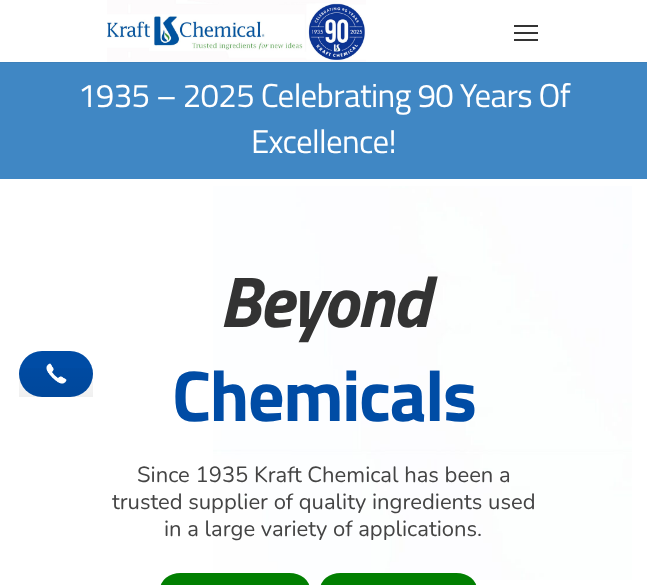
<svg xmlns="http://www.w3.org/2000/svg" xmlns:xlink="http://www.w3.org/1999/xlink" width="647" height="585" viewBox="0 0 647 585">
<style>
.cls-1{font:33px Titillium Web;letter-spacing:-0.65px;fill:#ffffff}
.cls-2{font:italic bold 72px Titillium Web;letter-spacing:-1.5px;fill:#333333}
.cls-3{font:bold 72px Titillium Web;letter-spacing:-1.5px;fill:#004ca5}
.cls-4{font:22px Nunito;fill:#444444}
</style>
<defs>
<linearGradient id="g1" gradientUnits="userSpaceOnUse" x1="56" y1="351" x2="56" y2="397"><stop offset="0" stop-color="#000000" stop-opacity="0"/><stop offset="1" stop-color="#000000" stop-opacity="0.06"/></linearGradient>
</defs>
<rect width="100%" height="100%" fill="#ffffff"/>
<rect fill="none" stroke="#3d80ba" x="-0.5" y="-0.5" width="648" height="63"/>
<image xlink:href="image0.png" x="107" y="0" width="259" height="62"/>
<rect fill="#333333" x="514" y="25" width="24" height="2"/>
<rect fill="#333333" x="514" y="32" width="24" height="2"/>
<rect fill="#333333" x="514" y="39" width="24" height="2"/>
<rect fill="#004ca5" x="19" y="351" width="74" height="46" rx="23"/>
<rect fill="url(#g1)" x="19" y="368" width="74" height="29"/>
<image xlink:href="image1.png" x="46" y="363" width="21" height="21"/>
<rect fill="#4087c4" x="0" y="63" width="647" height="116"/>
<image xlink:href="image2.png" x="213" y="186" width="419" height="394"/>
<rect fill="#017f01" x="160" y="573" width="150" height="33" rx="20.5"/>
<rect fill="#017f01" x="320" y="573" width="157" height="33" rx="20.5"/>
<text class="cls-1" x="78" y="107">1935 – 2025 Celebrating 90 Years Of</text>
<text class="cls-1" x="251" y="153">Excellence!</text>
<text class="cls-2" x="219" y="327">Beyond</text>
<text class="cls-3" x="172" y="421">Chemicals</text>
<text class="cls-4" x="137" y="482">Since 1935 Kraft Chemical has been a</text>
<text class="cls-4" x="112" y="509">trusted supplier of quality ingredients used</text>
<text class="cls-4" x="164" y="536">in a large variety of applications.</text>
</svg>
